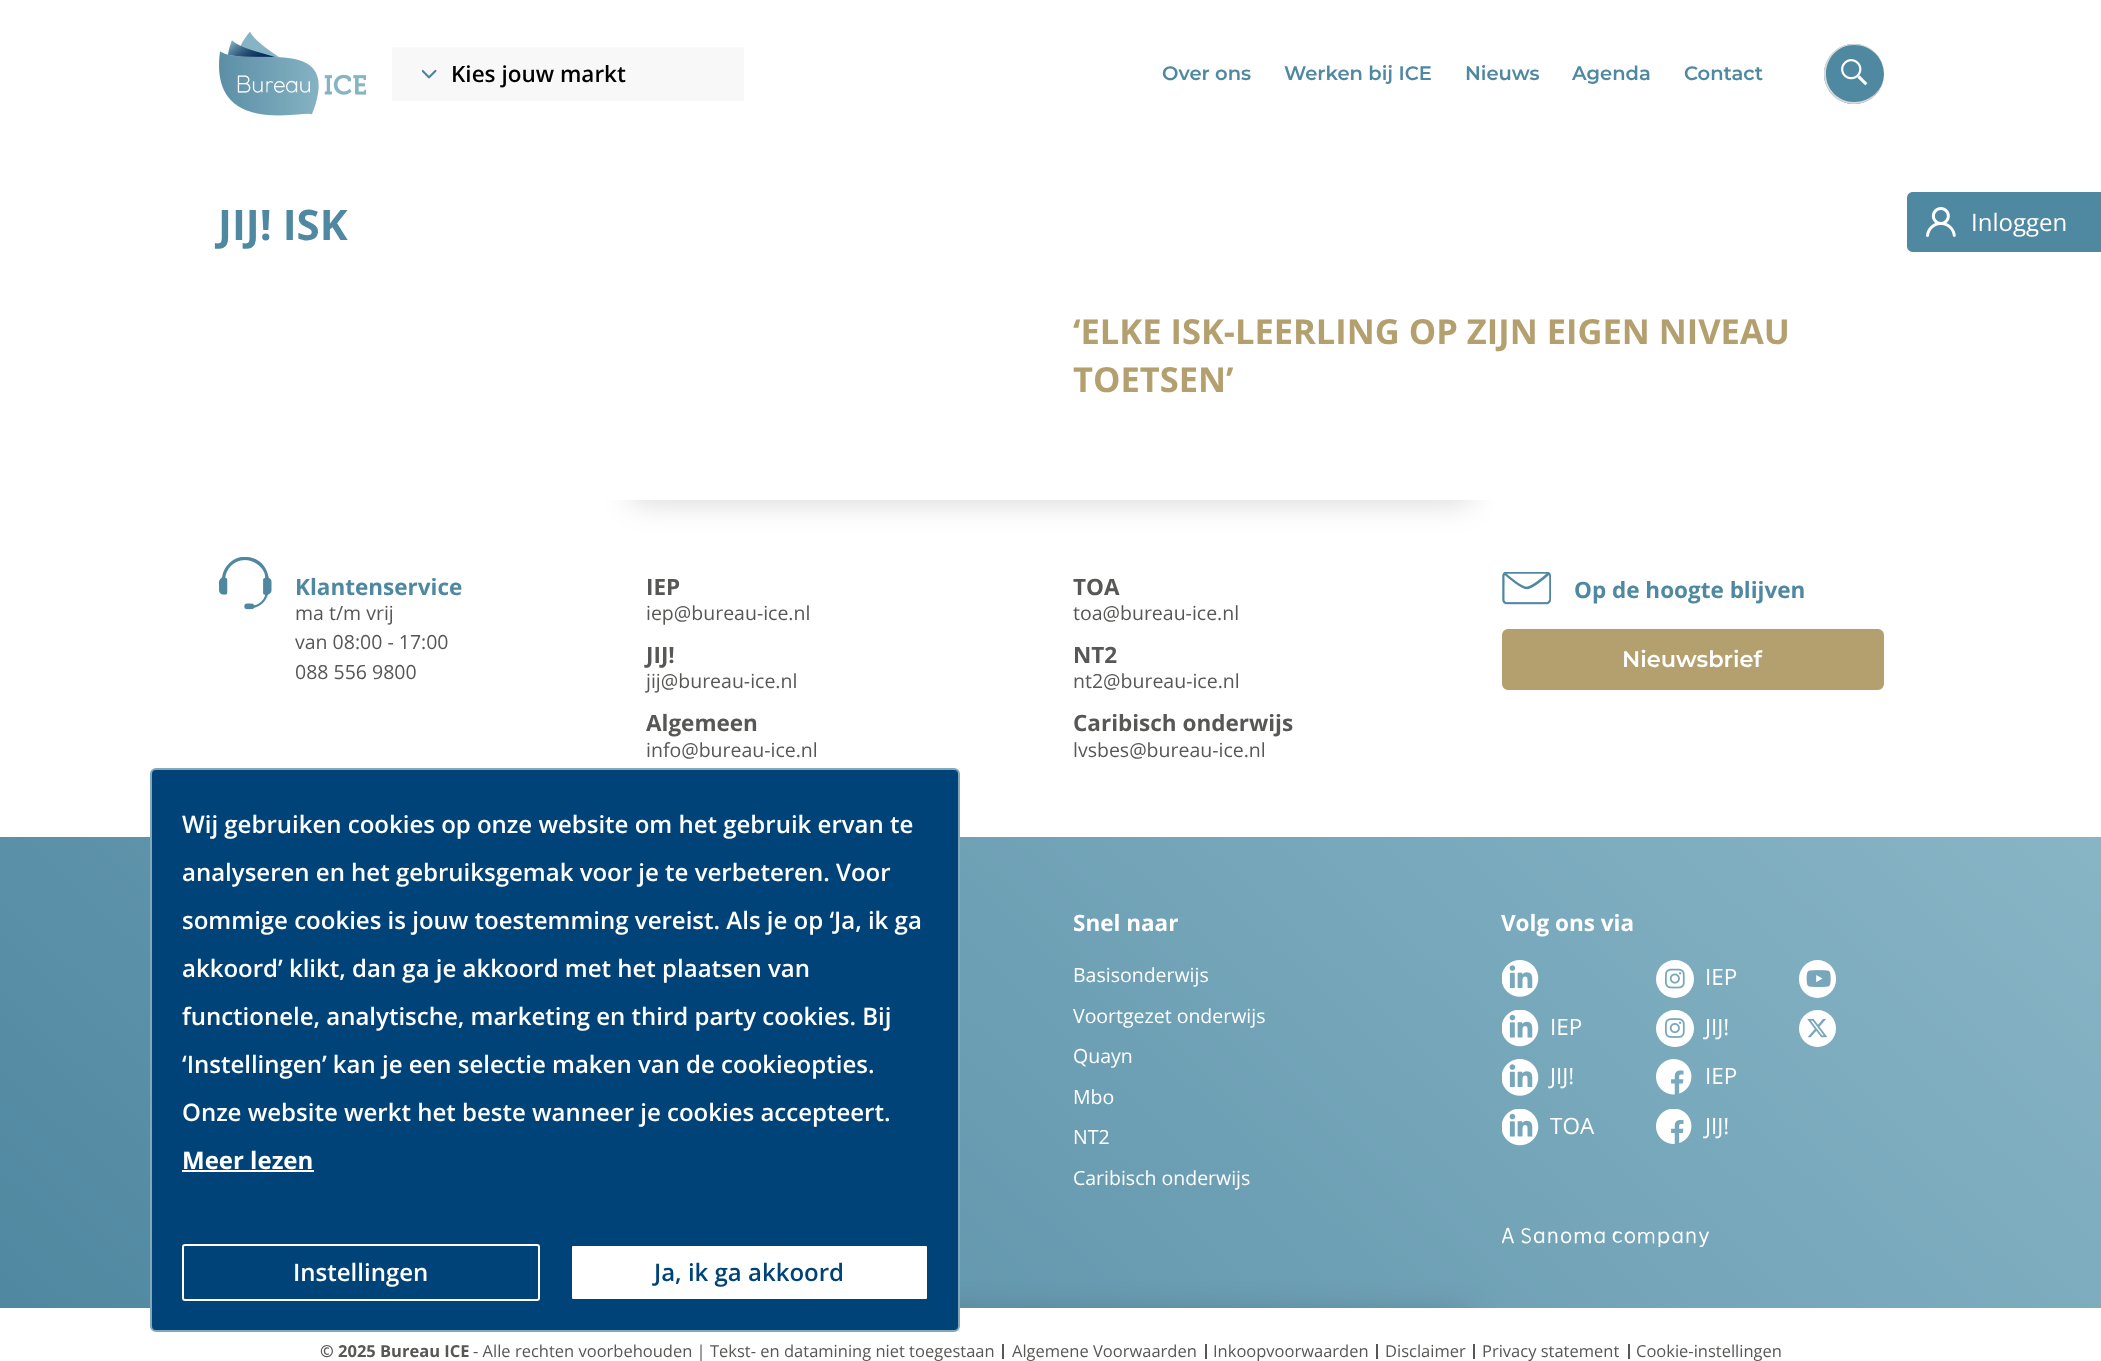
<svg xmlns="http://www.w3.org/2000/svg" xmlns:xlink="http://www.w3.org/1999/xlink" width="2101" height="1361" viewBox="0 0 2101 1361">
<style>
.cls-1{font:600 22.5px Open Sans;fill:#000000}
.cls-2{font:600 19.5px Montserrat;fill:#4f88a1}
.cls-3{font:24px Open Sans;fill:#ffffff}
.cls-4{font:bold 42px Open Sans;fill:#4f88a1}
.cls-5{font:bold 34.5px Open Sans;fill:#b3a06e}
.cls-6{font:bold 22.5px Open Sans;fill:#4f88a1}
.cls-7{font:19.5px Open Sans;fill:#575756}
.cls-8{font:bold 22.5px Open Sans;fill:#575756}
.cls-9{font:600 22.5px Montserrat;fill:#ffffff}
.cls-10{font:bold 22.5px Open Sans;fill:#ffffff}
.cls-11{font:19.5px Open Sans;fill:#ffffff}
.cls-12{font:22.5px Open Sans;fill:#ffffff}
.cls-13{font:bold 16.5px Open Sans;fill:#575756}
.cls-14{font:16.5px Open Sans;fill:#575756}
.cls-15{font:600 24px Open Sans;fill:#ffffff}
.cls-16{font:bold 24px Open Sans;fill:#ffffff}
.cls-17{font:600 24px Open Sans;fill:#004379}
</style>
<defs>
<clipPath id="clip1"><rect x="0" y="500" width="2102" height="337"/></clipPath>
<linearGradient id="g1" gradientUnits="userSpaceOnUse" x1="439" y1="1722" x2="1663" y2="423"><stop offset="0" stop-color="#5088a1"/><stop offset="1" stop-color="#88b5c6"/></linearGradient>
<clipPath id="clip2"><rect x="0" y="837" width="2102" height="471"/></clipPath>
</defs>
<rect width="100%" height="100%" fill="#ffffff"/>
<image xlink:href="image0.png" x="219" y="32" width="147" height="84"/>
<image xlink:href="image1.png" x="422" y="69" width="15" height="10"/>
<rect fill="#262626" fill-opacity="0.03" x="392" y="47" width="352" height="54"/>
<circle fill="#4e88a1" cx="1854" cy="74" r="30"/>
<path fill="#d8d8d8" fill-rule="evenodd" d="M1854 44C1871 44 1884 57 1884 74C1884 90 1871 104 1854 104C1837 104 1824 90 1824 74C1824 57 1837 44 1854 44ZM1854 45C1871 45 1884 58 1884 74C1884 89 1871 102 1854 102C1838 102 1826 89 1826 74C1826 58 1838 45 1854 45Z"/>
<image xlink:href="image2.png" x="1841" y="59" width="27" height="27"/>
<path fill="#4e88a1" d="M1913 192H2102V252H1913C1909.5 252 1907 249.5 1907 246V198C1907 194.5 1909.5 192 1913 192Z"/>
<image xlink:href="image3.png" x="1926" y="207" width="30" height="30"/>
<g clip-path="url(#clip1)">
<rect fill="#000000" fill-opacity="0.15" filter="blur(15px)" x="630" y="443" width="842" height="60" rx="12"/>
</g>
<image xlink:href="image4.png" x="219" y="557" width="53" height="53"/>
<image xlink:href="image5.png" x="1502" y="572" width="49" height="33"/>
<rect fill="#b3a06e" stroke="#b3a06e" stroke-width="2" x="1503" y="630" width="380" height="59" rx="5"/>
<rect fill="url(#g1)" x="0" y="837" width="2101" height="471"/>
<image xlink:href="image6.png" x="1502" y="960" width="37" height="37"/>
<circle fill="#ffffff" cx="1675" cy="979" r="19"/>
<image xlink:href="image7.png" x="1665" y="968" width="20" height="21"/>
<rect fill="#ffffff" x="1799" y="960" width="37" height="38" rx="18.5"/>
<image xlink:href="image8.png" x="1806" y="970" width="25" height="17"/>
<image xlink:href="image9.png" x="1502" y="1010" width="37" height="37"/>
<rect fill="#ffffff" x="1656" y="1010" width="38" height="37" rx="18.5"/>
<image xlink:href="image10.png" x="1665" y="1018" width="20" height="20"/>
<circle fill="#ffffff" cx="1817.5" cy="1028.5" r="18.5"/>
<image xlink:href="image11.png" x="1807" y="1018" width="21" height="20"/>
<image xlink:href="image12.png" x="1502" y="1059" width="37" height="37"/>
<image xlink:href="image13.png" x="1656" y="1059" width="36" height="36"/>
<image xlink:href="image14.png" x="1502" y="1109" width="37" height="37"/>
<image xlink:href="image15.png" x="1656" y="1109" width="36" height="35"/>
<image xlink:href="image16.png" x="1502" y="1227" width="207" height="20"/>
<g clip-path="url(#clip2)">
<rect fill="#000000" fill-opacity="0.15" filter="blur(15px)" x="630" y="1311" width="842" height="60" rx="12"/>
</g>
<rect fill="#575756" x="1002" y="1344" width="2" height="15"/>
<rect fill="#575756" x="1205" y="1344" width="2" height="15"/>
<rect fill="#575756" x="1376" y="1344" width="2" height="15"/>
<rect fill="#575756" x="1473" y="1344" width="2" height="15"/>
<rect fill="#575756" x="1628" y="1344" width="2" height="15"/>
<rect fill="#004379" stroke="#83a9b9" stroke-width="2" x="151" y="769" width="808" height="562" rx="5"/>
<rect fill="#ffffff" x="182" y="1170" width="132" height="2"/>
<rect fill="none" stroke="#ffffff" stroke-width="2" x="183" y="1245" width="356" height="55" rx="2"/>
<rect fill="#ffffff" stroke="#004379" stroke-width="2" x="571" y="1245" width="357" height="55" rx="2"/>
<text class="cls-1" x="451" y="82">Kies jouw markt</text>
<text class="cls-2" x="1162" y="80">Over ons</text>
<text class="cls-2" x="1284" y="80">Werken bij ICE</text>
<text class="cls-2" x="1465" y="80">Nieuws</text>
<text class="cls-2" x="1572" y="80">Agenda</text>
<text class="cls-2" x="1684" y="80">Contact</text>
<text class="cls-3" x="1971" y="231">Inloggen</text>
<text class="cls-4" x="218" y="240">JIJ! ISK</text>
<text class="cls-5"><tspan x="1073" y="344">‘ELKE ISK-LEERLING OP ZIJN EIGEN NIVEAU</tspan><tspan x="1073" y="392">TOETSEN’</tspan></text>
<text class="cls-6" x="295" y="595">Klantenservice</text>
<text class="cls-7"><tspan x="295" y="620">ma t/m vrij</tspan><tspan x="295" y="649">van 08:00 - 17:00</tspan><tspan x="295" y="679">088 556 9800</tspan></text>
<text class="cls-8" x="646" y="595">IEP</text>
<text class="cls-7" x="646" y="620">iep@bureau-ice.nl</text>
<text class="cls-8" x="646" y="663">JIJ!</text>
<text class="cls-7" x="646" y="688">jij@bureau-ice.nl</text>
<text class="cls-8" x="646" y="731">Algemeen</text>
<text class="cls-7" x="646" y="757">info@bureau-ice.nl</text>
<text class="cls-8" x="1073" y="595">TOA</text>
<text class="cls-7" x="1073" y="620">toa@bureau-ice.nl</text>
<text class="cls-8" x="1073" y="663">NT2</text>
<text class="cls-7" x="1073" y="688">nt2@bureau-ice.nl</text>
<text class="cls-8" x="1073" y="731">Caribisch onderwijs</text>
<text class="cls-7" x="1073" y="757">lvsbes@bureau-ice.nl</text>
<text class="cls-6" x="1574" y="598">Op de hoogte blijven</text>
<text class="cls-9" x="1622" y="667">Nieuwsbrief</text>
<text class="cls-10" x="1073" y="931">Snel naar</text>
<text class="cls-11" x="1073" y="982">Basisonderwijs</text>
<text class="cls-11" x="1073" y="1023">Voortgezet onderwijs</text>
<text class="cls-11" x="1073" y="1063">Quayn</text>
<text class="cls-11" x="1073" y="1104">Mbo</text>
<text class="cls-11" x="1073" y="1144">NT2</text>
<text class="cls-11" x="1073" y="1185">Caribisch onderwijs</text>
<text class="cls-10" x="1501" y="931">Volg ons via</text>
<text class="cls-12" x="1705" y="985">IEP</text>
<text class="cls-12" x="1550" y="1035">IEP</text>
<text class="cls-12" x="1705" y="1035">JIJ!</text>
<text class="cls-12" x="1550" y="1084">JIJ!</text>
<text class="cls-12" x="1705" y="1084">IEP</text>
<text class="cls-12" x="1550" y="1134">TOA</text>
<text class="cls-12" x="1705" y="1134">JIJ!</text>
<text class="cls-13" x="320" y="1357">© 2025 Bureau ICE</text>
<text class="cls-14" x="473" y="1357">- Alle rechten voorbehouden | Tekst- en datamining niet toegestaan</text>
<text class="cls-14" x="1012" y="1357">Algemene Voorwaarden</text>
<text class="cls-14" x="1213" y="1357">Inkoopvoorwaarden</text>
<text class="cls-14" x="1385" y="1357">Disclaimer</text>
<text class="cls-14" x="1482" y="1357">Privacy statement</text>
<text class="cls-14" x="1636" y="1357">Cookie-instellingen</text>
<text class="cls-15" x="182" y="833">Wij gebruiken cookies op onze website om het gebruik ervan te</text>
<text class="cls-15" x="182" y="881">analyseren en het gebruiksgemak voor je te verbeteren. Voor</text>
<text class="cls-15" x="182" y="929">sommige cookies is jouw toestemming vereist. Als je op ‘Ja, ik ga</text>
<text class="cls-15" x="182" y="977">akkoord’ klikt, dan ga je akkoord met het plaatsen van</text>
<text class="cls-15" x="182" y="1025">functionele, analytische, marketing en third party cookies. Bij</text>
<text class="cls-15" x="182" y="1073">‘Instellingen’ kan je een selectie maken van de cookieopties.</text>
<text class="cls-15" x="182" y="1121">Onze website werkt het beste wanneer je cookies accepteert.</text>
<text class="cls-16" x="182" y="1169">Meer lezen</text>
<text class="cls-15" x="293" y="1281">Instellingen</text>
<text class="cls-17" x="654" y="1281">Ja, ik ga akkoord</text>
</svg>
